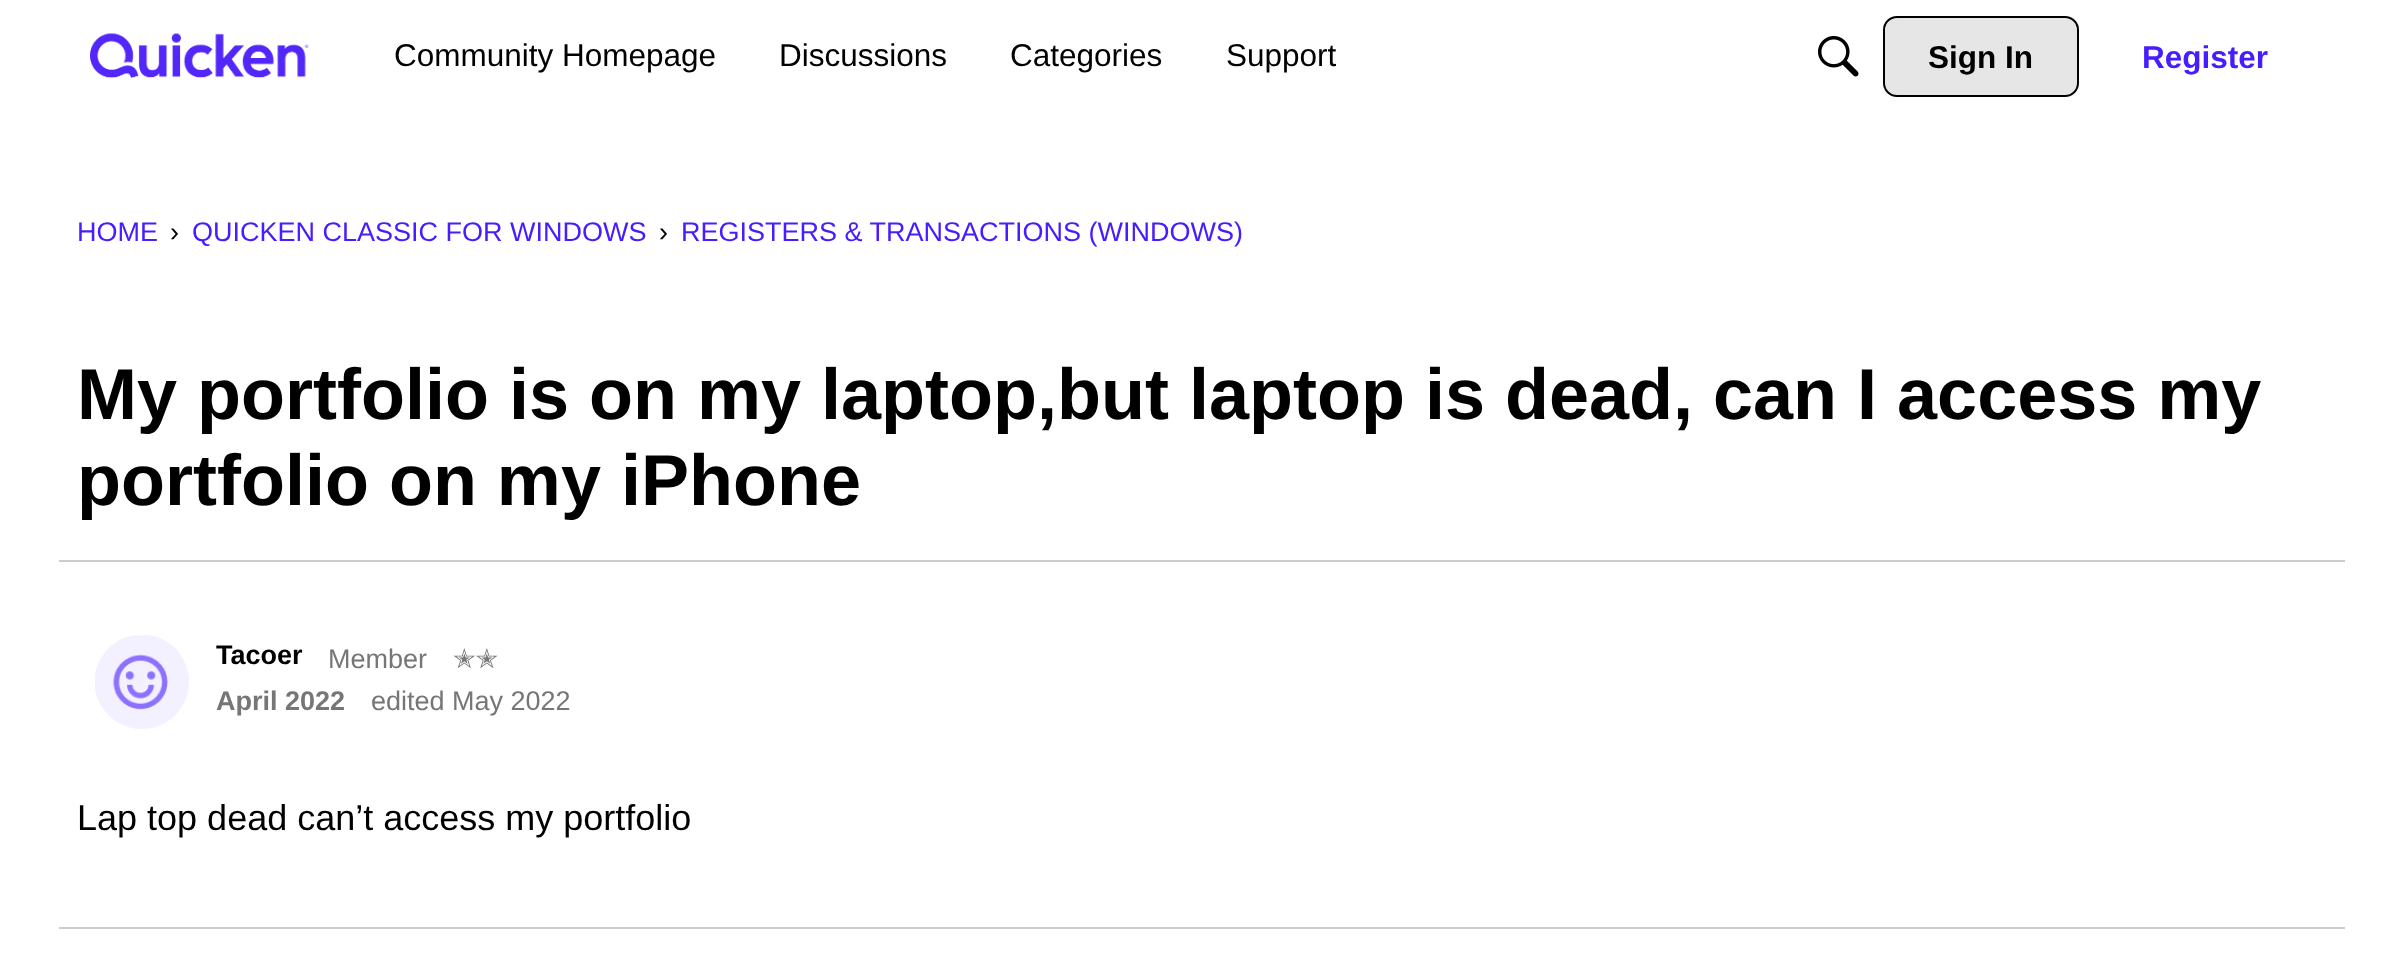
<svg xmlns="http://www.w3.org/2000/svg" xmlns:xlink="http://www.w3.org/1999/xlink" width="2402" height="977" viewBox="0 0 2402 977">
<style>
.cls-1{font:31.5px Liberation Sans;fill:#000000}
.cls-2{font:bold 31.5px Liberation Sans;fill:#000000}
.cls-3{font:bold 31.5px Liberation Sans;fill:#471cff}
.cls-4{font:27px Liberation Sans;fill:#471cff}
.cls-5{font:27px Liberation Sans;fill:#000000}
.cls-6{font:bold 72px Liberation Sans;fill:#000000}
.cls-7{font:bold 27px Liberation Sans;fill:#000000}
.cls-8{font:27px Liberation Sans;fill:#767676}
.cls-9{font:27px DejaVu Sans;fill:#767676}
.cls-10{font:bold 27px Liberation Sans;fill:#767676}
.cls-11{font:36px Liberation Sans;fill:#000000}
</style>
<rect width="100%" height="100%" fill="#ffffff"/>
<image xlink:href="image0.png" x="90" y="33" width="219" height="45"/>
<image xlink:href="image1.png" x="1818" y="36" width="41" height="41"/>
<rect fill="#e6e6e6" stroke="#000000" stroke-width="2" x="1884" y="17" width="194" height="79" rx="13"/>
<rect fill="#cccccc" x="59" y="560" width="2286" height="2"/>
<image xlink:href="image2.png" x="95" y="635" width="94" height="94"/>
<rect fill="#cccccc" x="59" y="927" width="2286" height="2"/>
<text class="cls-1" x="394" y="66">Community Homepage</text>
<text class="cls-1" x="779" y="66">Discussions</text>
<text class="cls-1" x="1010" y="66">Categories</text>
<text class="cls-1" x="1226" y="66">Support</text>
<text class="cls-2" x="1928" y="68">Sign In</text>
<text class="cls-3" x="2142" y="68">Register</text>
<text class="cls-4" x="77" y="241">HOME</text>
<text class="cls-5" x="170" y="241">›</text>
<text class="cls-4" x="192" y="241">QUICKEN CLASSIC FOR WINDOWS</text>
<text class="cls-5" x="659" y="241">›</text>
<text class="cls-4" x="681" y="241">REGISTERS &amp; TRANSACTIONS (WINDOWS)</text>
<text class="cls-6"><tspan x="77" y="419">My portfolio is on my laptop,but laptop is dead, can I access my</tspan><tspan x="77" y="505">portfolio on my iPhone</tspan></text>
<text class="cls-7" x="216" y="664">Tacoer</text>
<text class="cls-8" x="328" y="668">Member</text>
<text class="cls-9" x="453" y="668">✭✭</text>
<text class="cls-10" x="216" y="710">April 2022</text>
<text class="cls-8" x="371" y="710">edited May 2022</text>
<text class="cls-11" x="77" y="830">Lap top dead can’t access my portfolio</text>
</svg>
